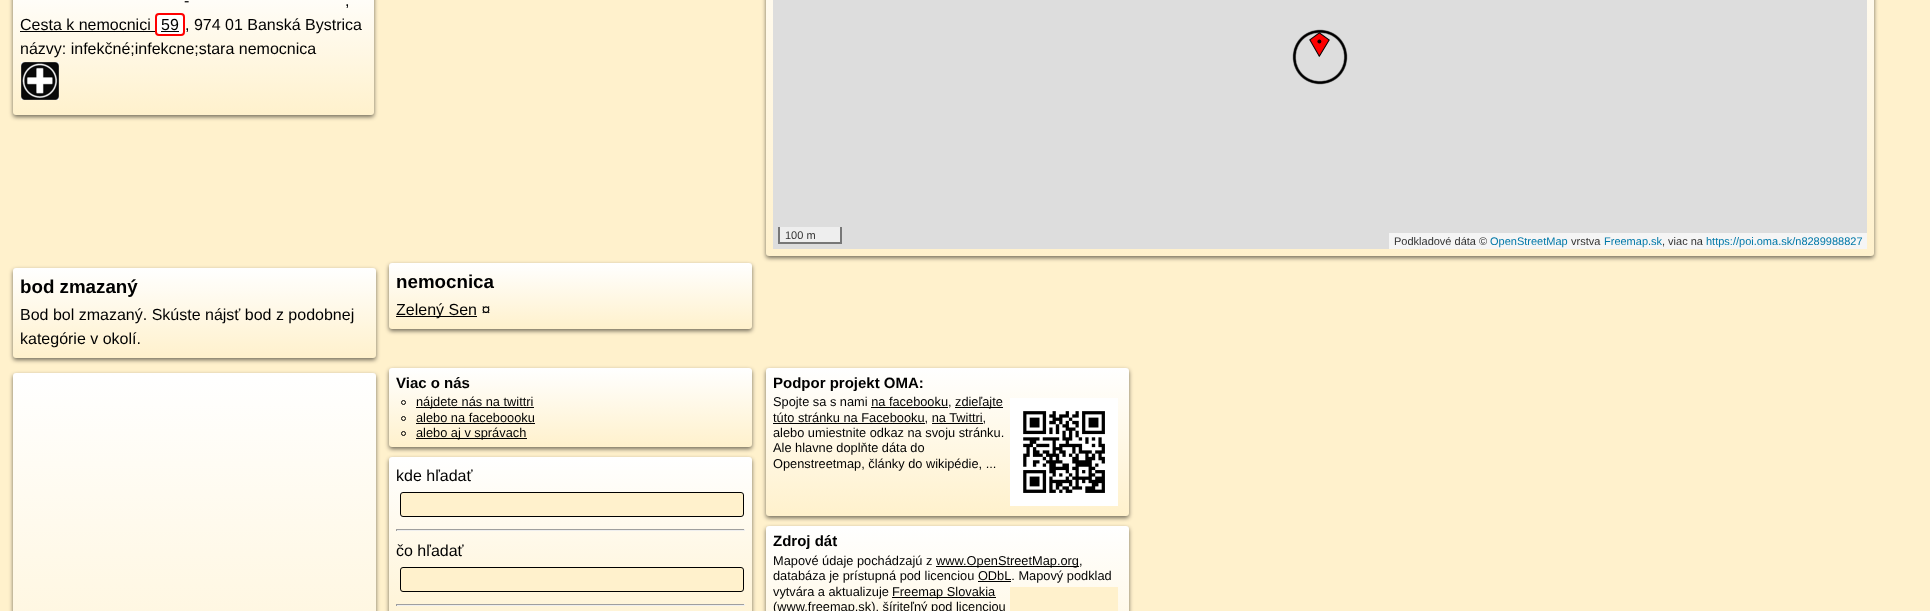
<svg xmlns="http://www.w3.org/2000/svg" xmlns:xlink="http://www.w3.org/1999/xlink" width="1930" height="611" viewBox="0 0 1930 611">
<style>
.cls-1{font:16px Liberation Sans;fill:#000000}
.cls-2{font:11px Liberation Sans;fill:#333333}
.cls-3{font:11px Liberation Sans;fill:#0078a8}
.cls-4{font:bold 18.75px Liberation Sans;fill:#000000}
.cls-5{font:bold 15px Liberation Sans;fill:#000000}
.cls-6{font:12.8px Liberation Sans;fill:#000000}
</style>
<defs>
<linearGradient id="g1" gradientUnits="userSpaceOnUse" x1="194" y1="-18" x2="194" y2="115"><stop offset="0" stop-color="#ffffff"/><stop offset="1" stop-color="#fff1cc"/></linearGradient>
<linearGradient id="g2" gradientUnits="userSpaceOnUse" x1="1320" y1="-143" x2="1320" y2="256"><stop offset="0" stop-color="#ffffff"/><stop offset="1" stop-color="#fff1cc"/></linearGradient>
<linearGradient id="g3" gradientUnits="userSpaceOnUse" x1="195" y1="268" x2="195" y2="358"><stop offset="0" stop-color="#ffffff"/><stop offset="1" stop-color="#fff1cc"/></linearGradient>
<linearGradient id="g4" gradientUnits="userSpaceOnUse" x1="571" y1="263" x2="571" y2="329"><stop offset="0" stop-color="#ffffff"/><stop offset="1" stop-color="#fff1cc"/></linearGradient>
<linearGradient id="g5" gradientUnits="userSpaceOnUse" x1="194" y1="373" x2="195" y2="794"><stop offset="0" stop-color="#ffffff"/><stop offset="1" stop-color="#fff1cc"/></linearGradient>
<linearGradient id="g6" gradientUnits="userSpaceOnUse" x1="571" y1="368" x2="571" y2="447"><stop offset="0" stop-color="#ffffff"/><stop offset="1" stop-color="#fff1cc"/></linearGradient>
<linearGradient id="g7" gradientUnits="userSpaceOnUse" x1="948" y1="368" x2="948" y2="516"><stop offset="0" stop-color="#ffffff"/><stop offset="1" stop-color="#fff1cc"/></linearGradient>
<linearGradient id="g8" gradientUnits="userSpaceOnUse" x1="571" y1="457" x2="571" y2="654"><stop offset="0" stop-color="#ffffff"/><stop offset="1" stop-color="#fff1cc"/></linearGradient>
<linearGradient id="g9" gradientUnits="userSpaceOnUse" x1="948" y1="526" x2="948" y2="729"><stop offset="0" stop-color="#ffffff"/><stop offset="1" stop-color="#fff1cc"/></linearGradient>
</defs>
<rect width="100%" height="100%" fill="#fff1cc"/>
<rect fill="#000000" fill-opacity="0.55" filter="blur(2px)" x="13" y="-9" width="361" height="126" rx="3"/>
<rect fill="url(#g1)" x="13" y="-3" width="361" height="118" rx="3"/>
<rect fill="#000000" x="20" y="31" width="135" height="1"/>
<rect fill="#ffffff" stroke="#ff0000" stroke-width="2" x="156" y="14" width="28" height="21" rx="3"/>
<rect fill="#000000" x="161" y="31" width="18" height="1"/>
<image xlink:href="image0.png" x="21" y="62" width="38" height="38"/>
<rect fill="#000000" fill-opacity="0.55" filter="blur(2px)" x="766" y="-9" width="1108" height="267" rx="3"/>
<rect fill="url(#g2)" x="766" y="-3" width="1108" height="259" rx="3"/>
<rect fill="#dddddd" x="773" y="0" width="1094" height="249"/>
<image xlink:href="image1.png" x="1292" y="29" width="56" height="56"/>
<image xlink:href="image2.png" x="1309" y="32" width="21" height="25"/>
<rect fill="#eeeeee" x="780" y="227" width="60" height="15"/>
<rect fill="#777777" x="840" y="227" width="2" height="17"/>
<rect fill="#777777" x="778" y="242" width="64" height="2"/>
<rect fill="#777777" x="778" y="227" width="2" height="17"/>
<rect fill="#f5f5f5" x="1389" y="233" width="478" height="16"/>
<rect fill="#000000" fill-opacity="0.55" filter="blur(2px)" x="13" y="270" width="363" height="90" rx="3"/>
<rect fill="url(#g3)" x="13" y="268" width="363" height="90" rx="3"/>
<rect fill="#000000" fill-opacity="0.55" filter="blur(2px)" x="389" y="265" width="363" height="66" rx="3"/>
<rect fill="url(#g4)" x="389" y="263" width="363" height="66" rx="3"/>
<rect fill="#000000" x="396" y="316" width="81" height="1"/>
<rect fill="#000000" fill-opacity="0.55" filter="blur(2px)" x="13" y="375" width="363" height="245" rx="3"/>
<rect fill="url(#g5)" x="13" y="373" width="363" height="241" rx="3"/>
<rect fill="#000000" fill-opacity="0.55" filter="blur(2px)" x="389" y="370" width="363" height="79" rx="3"/>
<rect fill="url(#g6)" x="389" y="368" width="363" height="79" rx="3"/>
<circle fill="none" stroke="#000000" cx="403.5" cy="402.5" r="2"/>
<rect fill="#000000" x="416" y="407" width="118" height="1"/>
<circle fill="none" stroke="#000000" cx="403.5" cy="418.5" r="2"/>
<rect fill="#000000" x="416" y="423" width="119" height="1"/>
<circle fill="none" stroke="#000000" cx="403.5" cy="433.5" r="2"/>
<rect fill="#000000" x="416" y="438" width="111" height="1"/>
<rect fill="#000000" fill-opacity="0.55" filter="blur(2px)" x="766" y="370" width="363" height="148" rx="3"/>
<rect fill="url(#g7)" x="766" y="368" width="363" height="148" rx="3"/>
<rect fill="#000000" x="955" y="407" width="48" height="1"/>
<rect fill="#000000" x="871" y="407" width="77" height="1"/>
<rect fill="#000000" x="773" y="423" width="152" height="1"/>
<rect fill="#000000" x="932" y="423" width="51" height="1"/>
<image xlink:href="image3.png" x="1010" y="398" width="108" height="108"/>
<rect fill="#000000" fill-opacity="0.55" filter="blur(2px)" x="389" y="459" width="363" height="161" rx="3"/>
<rect fill="url(#g8)" x="389" y="457" width="363" height="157" rx="3"/>
<rect fill="#fff1cc" stroke="#000000" x="400.5" y="492.5" width="343" height="24" rx="2.5"/>
<rect fill="#9f9f9f" x="396" y="529" width="349" height="1"/>
<rect fill="#eeeeee" x="744" y="529" width="1" height="2"/>
<rect fill="#eeeeee" x="396" y="530" width="349" height="1"/>
<rect fill="#9f9f9f" x="396" y="529" width="1" height="2"/>
<rect fill="#fff1cc" stroke="#000000" x="400.5" y="567.5" width="343" height="24" rx="2.5"/>
<rect fill="#9f9f9f" x="396" y="604" width="349" height="1"/>
<rect fill="#eeeeee" x="744" y="604" width="1" height="2"/>
<rect fill="#eeeeee" x="396" y="605" width="349" height="1"/>
<rect fill="#9f9f9f" x="396" y="604" width="1" height="2"/>
<rect fill="#000000" fill-opacity="0.55" filter="blur(2px)" x="766" y="528" width="363" height="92" rx="3"/>
<rect fill="url(#g9)" x="766" y="526" width="363" height="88" rx="3"/>
<rect fill="#000000" x="936" y="566" width="143" height="1"/>
<rect fill="#000000" x="978" y="581" width="33" height="1"/>
<rect fill="#000000" x="892" y="597" width="104" height="1"/>
<rect fill="#fff1cc" x="1010" y="587" width="108" height="24"/>
<text class="cls-1" x="184" y="6">-</text>
<text class="cls-1" x="345" y="6">,</text>
<text class="cls-1" x="20" y="30">Cesta k nemocnici</text>
<text class="cls-1" x="161" y="30">59</text>
<text class="cls-1" x="185" y="30">, 974 01 Banská Bystrica</text>
<text class="cls-1" x="20" y="54">názvy: infekčné;infekcne;stara nemocnica</text>
<text class="cls-2" x="785" y="239">100 m</text>
<text class="cls-2" x="1394" y="245">Podkladové dáta ©</text>
<text class="cls-3" x="1490" y="245">OpenStreetMap</text>
<text class="cls-2" x="1571" y="245">vrstva</text>
<text class="cls-3" x="1604" y="245">Freemap.sk</text>
<text class="cls-2" x="1662" y="245">, viac na</text>
<text class="cls-3" x="1706" y="245">https://poi.oma.sk/n8289988827</text>
<text class="cls-4" x="20" y="293">bod zmazaný</text>
<text class="cls-1"><tspan x="20" y="320">Bod bol zmazaný. Skúste nájsť bod z podobnej</tspan><tspan x="20" y="344">kategórie v okolí.</tspan></text>
<text class="cls-4" x="396" y="288">nemocnica</text>
<text class="cls-1" x="396" y="315">Zelený Sen ¤</text>
<text class="cls-5" x="396" y="388">Viac o nás</text>
<text class="cls-6"><tspan x="416" y="406">nájdete nás na twittri</tspan><tspan x="416" y="422">alebo na faceboooku</tspan><tspan x="416" y="437">alebo aj v správach</tspan></text>
<text class="cls-5" x="773" y="388">Podpor projekt OMA:</text>
<text class="cls-6" x="773" y="406">Spojte sa s nami na facebooku,</text>
<text class="cls-6" x="955" y="406">zdieľajte</text>
<text class="cls-6"><tspan x="773" y="422">túto stránku na Facebooku, na Twittri,</tspan><tspan x="773" y="437">alebo umiestnite odkaz na svoju stránku.</tspan><tspan x="773" y="452">Ale hlavne doplňte dáta do</tspan><tspan x="773" y="468">Openstreetmap, články do wikipédie, ...</tspan></text>
<text class="cls-1" x="396" y="481">kde hľadať</text>
<text class="cls-1" x="396" y="556">čo hľadať</text>
<text class="cls-5" x="773" y="546">Zdroj dát</text>
<text class="cls-6" x="773" y="565">Mapové údaje pochádzajú z</text>
<text class="cls-6" x="936" y="565">www.OpenStreetMap.org,</text>
<text class="cls-6"><tspan x="773" y="580">databáza je prístupná pod licenciou ODbL. Mapový podklad</tspan><tspan x="773" y="596">vytvára a aktualizuje</tspan></text>
<text class="cls-6" x="892" y="596">Freemap Slovakia</text>
<text class="cls-6" x="773" y="611">(www.freemap.sk), šíriteľný pod licenciou</text>
</svg>
